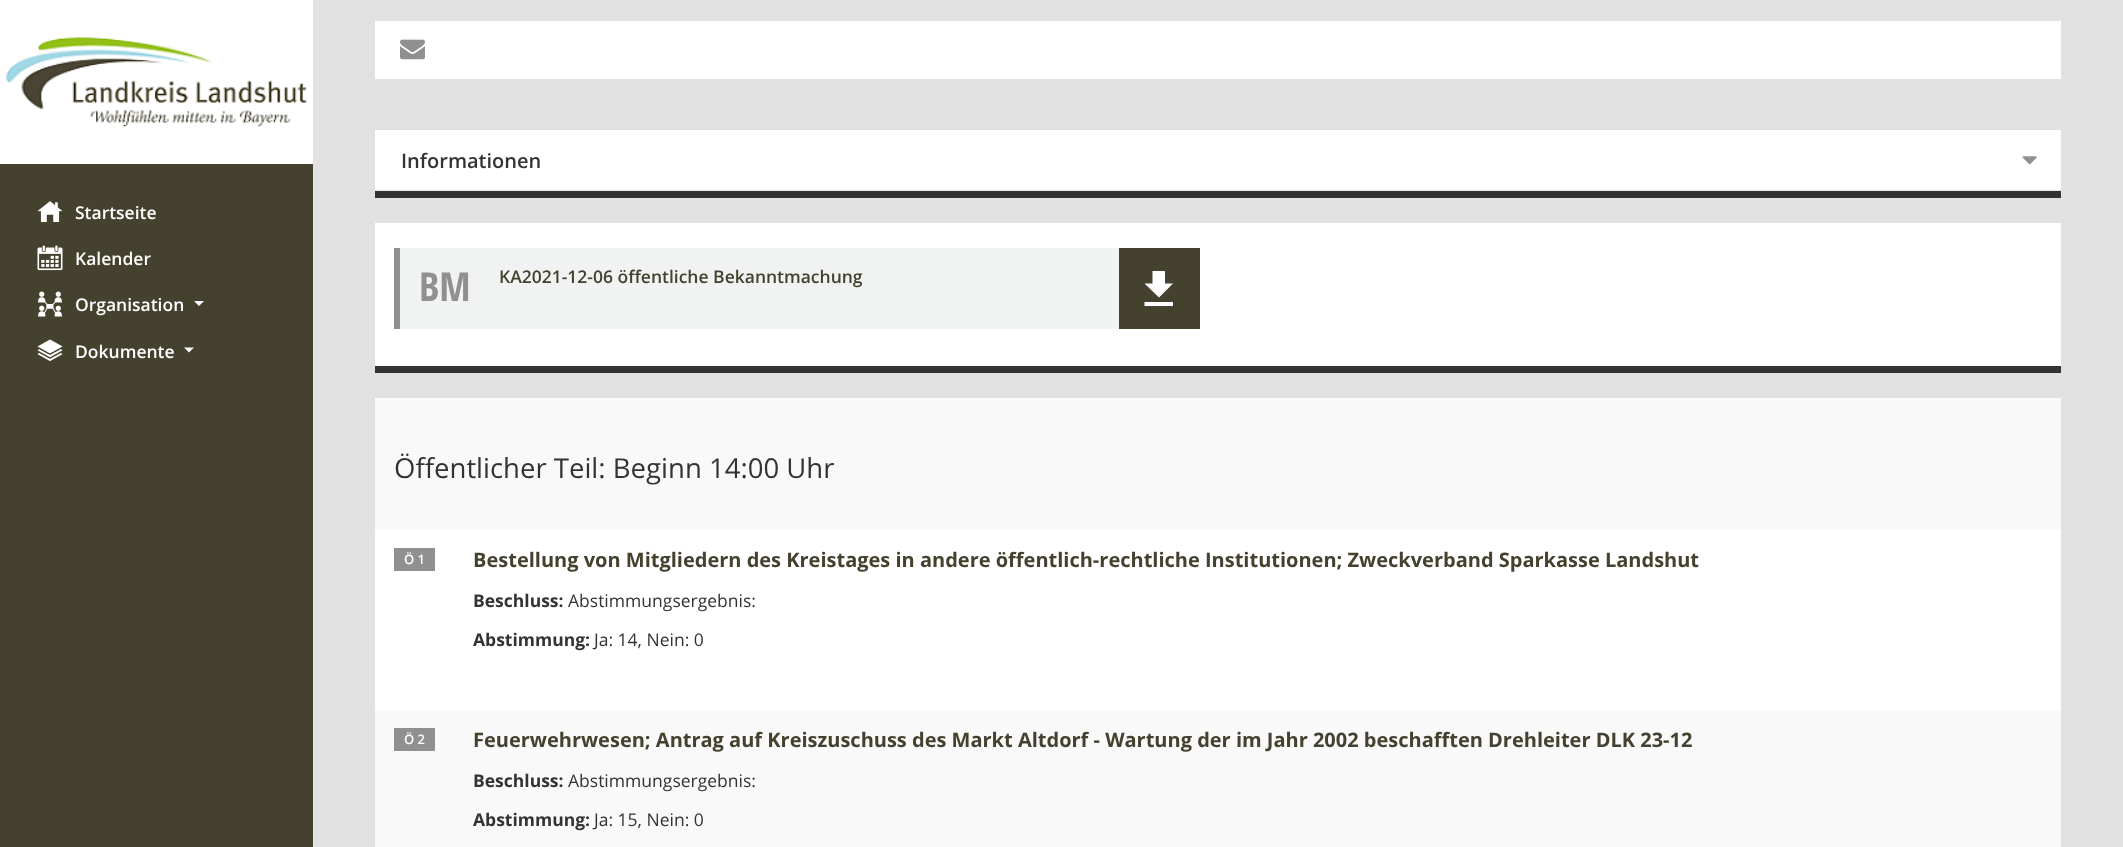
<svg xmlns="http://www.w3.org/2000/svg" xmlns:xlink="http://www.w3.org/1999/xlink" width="2123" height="847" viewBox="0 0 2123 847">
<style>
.cls-1{font:600 17.5px Open Sans;fill:#ffffff}
.cls-2{font:600 20px Open Sans;fill:#333333}
.cls-3{font:bold 40px Open Sans Condensed;fill:#909090}
.cls-4{font:600 17.5px Open Sans;fill:#44412e}
.cls-5{font:27.5px Open Sans;fill:#333333}
.cls-6{font:600 13px Open Sans;fill:#ffffff}
.cls-7{font:bold 20px Open Sans;fill:#44412e}
.cls-8{font:bold 17.5px Open Sans;fill:#333333}
.cls-9{font:17.5px Open Sans;fill:#333333}
</style>
<rect width="100%" height="100%" fill="#e1e1e1"/>
<rect fill="#44412e" x="0" y="164" width="313" height="683"/>
<rect fill="#ffffff" x="0" y="0" width="313" height="164"/>
<image xlink:href="image0.png" x="6" y="37" width="301" height="90"/>
<image xlink:href="image1.png" x="37" y="201" width="26" height="21"/>
<image xlink:href="image2.png" x="37" y="245" width="26" height="26"/>
<image xlink:href="image3.png" x="38" y="291" width="24" height="26"/>
<path fill="#ffffff" d="M194 301H204L199 306Z"/>
<image xlink:href="image4.png" x="37" y="339" width="26" height="22"/>
<path fill="#ffffff" d="M184 347.5H194L189 352.5Z"/>
<rect fill="#ffffff" x="375" y="21" width="1686" height="58"/>
<image xlink:href="image5.png" x="400" y="39" width="25" height="21"/>
<rect fill="#ffffff" x="375" y="130" width="1686" height="60"/>
<rect fill="#333333" x="375" y="191" width="1686" height="7"/>
<rect fill="#e6e6e6" x="375" y="190" width="1686" height="1"/>
<image xlink:href="image6.png" x="2022" y="156" width="15" height="9"/>
<rect fill="#ffffff" x="375" y="223" width="1686" height="143"/>
<rect fill="#333333" x="375" y="366" width="1686" height="7"/>
<rect fill="#f0f3f2" x="400" y="248" width="719" height="81"/>
<rect fill="#909090" x="394" y="248" width="6" height="81"/>
<rect fill="#44412e" x="1119" y="248" width="81" height="81"/>
<path fill="#ffffff" d="M1173 283.5H1165V271H1152.5V283.5H1144.5L1159 297.5ZM1144.5 302V306H1173V302Z"/>
<rect fill="#ffffff" x="375" y="530" width="1686" height="180"/>
<rect fill="#f9f9f9" x="375" y="398" width="1686" height="132"/>
<rect fill="#909090" x="394" y="548" width="41" height="23"/>
<rect fill="#f9f9f9" x="375" y="710" width="1686" height="137"/>
<rect fill="#909090" x="394" y="728" width="41" height="23"/>
<text class="cls-1" x="75" y="219">Startseite</text>
<text class="cls-1" x="75" y="265">Kalender</text>
<text class="cls-1" x="75" y="311">Organisation</text>
<text class="cls-1" x="75" y="358">Dokumente</text>
<text class="cls-2" x="401" y="168">Informationen</text>
<text class="cls-3" x="419" y="301">BM</text>
<text class="cls-4" x="499" y="283">KA2021-12-06 öffentliche Bekanntmachung</text>
<text class="cls-5" x="394" y="478">Öffentlicher Teil: Beginn 14:00 Uhr</text>
<text class="cls-6" x="404" y="564">Ö 1</text>
<text class="cls-7" x="473" y="567">Bestellung von Mitgliedern des Kreistages in andere öffentlich-rechtliche Institutionen; Zweckverband Sparkasse Landshut</text>
<text class="cls-8" x="473" y="607">Beschluss:</text>
<text class="cls-9" x="568" y="607">Abstimmungsergebnis:</text>
<text class="cls-8" x="473" y="646">Abstimmung:</text>
<text class="cls-9" x="594" y="646">Ja: 14, Nein: 0</text>
<text class="cls-6" x="404" y="744">Ö 2</text>
<text class="cls-7" x="473" y="747">Feuerwehrwesen; Antrag auf Kreiszuschuss des Markt Altdorf - Wartung der im Jahr 2002 beschafften Drehleiter DLK 23-12</text>
<text class="cls-8" x="473" y="787">Beschluss:</text>
<text class="cls-9" x="568" y="787">Abstimmungsergebnis:</text>
<text class="cls-8" x="473" y="826">Abstimmung:</text>
<text class="cls-9" x="594" y="826">Ja: 15, Nein: 0</text>
</svg>
